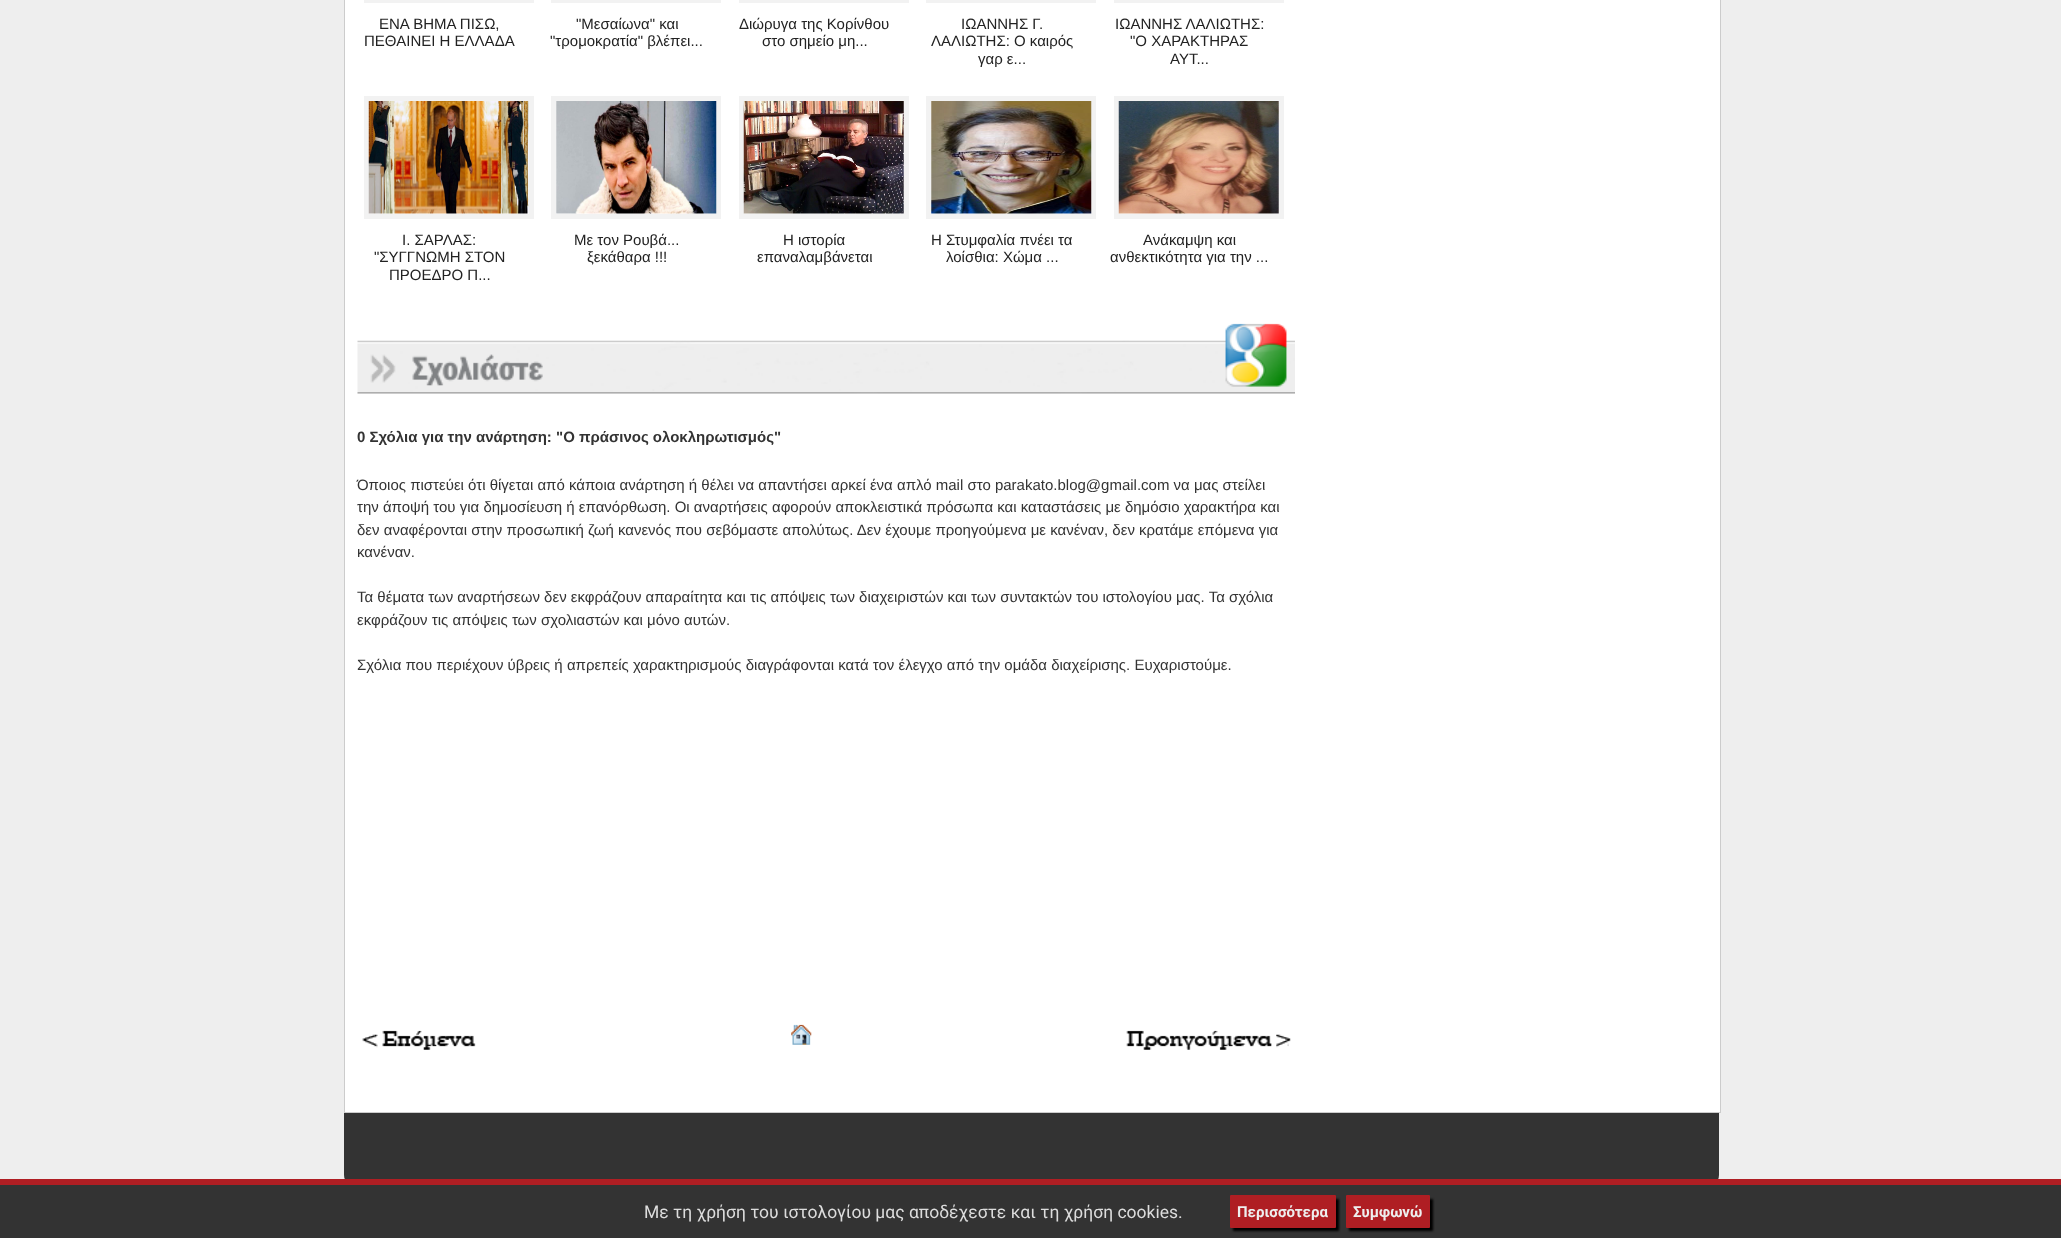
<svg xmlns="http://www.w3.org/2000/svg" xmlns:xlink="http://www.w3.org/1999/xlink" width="2061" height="1238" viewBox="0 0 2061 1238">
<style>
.cls-1{font:15px Liberation Sans;fill:#222222}
.cls-2{font:bold 15px Liberation Sans;fill:#333333}
.cls-3{font:15px Liberation Sans;fill:#333333}
.cls-4{font:17.5px Roboto;fill:#dddddd}
.cls-5{font:bold 15px Roboto;fill:#eeeeee}
</style>
<rect width="100%" height="100%" fill="#eeeeee"/>
<rect fill="#ffffff" stroke="#cccccc" x="344.5" y="-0.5" width="1376" height="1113"/>
<rect fill="none" stroke="#f2f2f2" stroke-width="5" x="366.5" y="-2.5" width="165" height="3"/>
<rect fill="none" stroke="#f2f2f2" stroke-width="5" x="553.5" y="-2.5" width="165" height="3"/>
<rect fill="none" stroke="#f2f2f2" stroke-width="5" x="741.5" y="-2.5" width="165" height="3"/>
<rect fill="none" stroke="#f2f2f2" stroke-width="5" x="928.5" y="-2.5" width="165" height="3"/>
<rect fill="none" stroke="#f2f2f2" stroke-width="5" x="1116.5" y="-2.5" width="165" height="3"/>
<rect fill="none" stroke="#f2f2f2" stroke-width="5" x="366.5" y="98.5" width="165" height="118"/>
<image xlink:href="image0.png" x="368" y="101" width="161" height="113"/>
<rect fill="none" stroke="#f2f2f2" stroke-width="5" x="553.5" y="98.5" width="165" height="118"/>
<image xlink:href="image1.png" x="556" y="101" width="161" height="113"/>
<rect fill="none" stroke="#f2f2f2" stroke-width="5" x="741.5" y="98.5" width="165" height="118"/>
<image xlink:href="image2.png" x="743" y="101" width="161" height="113"/>
<rect fill="none" stroke="#f2f2f2" stroke-width="5" x="928.5" y="98.5" width="165" height="118"/>
<image xlink:href="image3.png" x="931" y="101" width="161" height="113"/>
<rect fill="none" stroke="#f2f2f2" stroke-width="5" x="1116.5" y="98.5" width="165" height="118"/>
<image xlink:href="image4.png" x="1118" y="101" width="161" height="113"/>
<image xlink:href="image5.png" x="357" y="323" width="938" height="71"/>
<image xlink:href="image6.png" x="362" y="1030" width="114" height="20"/>
<image xlink:href="image7.png" x="791" y="1024" width="21" height="21"/>
<image xlink:href="image8.png" x="1126" y="1030" width="165" height="20"/>
<path fill="#333333" d="M344 1113H1719V1175C1719 1182 1713 1188 1706 1188H357C350 1188 344 1182 344 1175Z"/>
<rect fill="#333333" x="0" y="1185" width="2061" height="53"/>
<rect fill="#af1e23" x="0" y="1179" width="2061" height="6"/>
<rect fill="#000000" filter="blur(1px)" x="1233" y="1199" width="106" height="32" rx="1"/>
<rect fill="#af1e23" x="1230" y="1195" width="106" height="33" rx="1"/>
<rect fill="#000000" filter="blur(1px)" x="1349" y="1199" width="84" height="32" rx="1"/>
<rect fill="#af1e23" x="1346" y="1195" width="84" height="33" rx="1"/>
<text class="cls-1" x="379" y="29">ΕΝΑ ΒΗΜΑ ΠΙΣΩ,</text>
<text class="cls-1" x="364" y="46">ΠΕΘΑΙΝΕΙ Η ΕΛΛΑΔΑ</text>
<text class="cls-1" x="576" y="29">"Μεσαίωνα" και</text>
<text class="cls-1" x="550" y="46">"τρομοκρατία" βλέπει...</text>
<text class="cls-1" x="739" y="29">Διώρυγα της Κορίνθου</text>
<text class="cls-1" x="762" y="46">στο σημείο μη...</text>
<text class="cls-1" x="961" y="29">ΙΩΑΝΝΗΣ Γ.</text>
<text class="cls-1" x="931" y="46">ΛΑΛΙΩΤΗΣ: Ο καιρός</text>
<text class="cls-1" x="978" y="64">γαρ ε...</text>
<text class="cls-1" x="1115" y="29">ΙΩΑΝΝΗΣ ΛΑΛΙΩΤΗΣ:</text>
<text class="cls-1" x="1130" y="46">"O XAΡΑΚΤΗΡΑΣ</text>
<text class="cls-1" x="1170" y="64">ΑΥΤ...</text>
<text class="cls-1" x="402" y="245">Ι. ΣΑΡΛΑΣ:</text>
<text class="cls-1" x="374" y="262">"ΣΥΓΓΝΩΜΗ ΣΤΟΝ</text>
<text class="cls-1" x="389" y="280">ΠΡΟΕΔΡΟ Π...</text>
<text class="cls-1" x="574" y="245">Με τον Ρουβά...</text>
<text class="cls-1" x="587" y="262">ξεκάθαρα !!!</text>
<text class="cls-1" x="783" y="245">Η ιστορία</text>
<text class="cls-1" x="757" y="262">επαναλαμβάνεται</text>
<text class="cls-1" x="931" y="245">Η Στυμφαλία πνέει τα</text>
<text class="cls-1" x="946" y="262">λοίσθια: Χώμα ...</text>
<text class="cls-1" x="1143" y="245">Ανάκαμψη και</text>
<text class="cls-1" x="1110" y="262">ανθεκτικότητα για την ...</text>
<text class="cls-2" x="357" y="442">0 Σχόλια για την ανάρτηση: "Ο πράσινος ολοκληρωτισμός"</text>
<text class="cls-3"><tspan x="357" y="490">Όποιος πιστεύει ότι θίγεται από κάποια ανάρτηση ή θέλει να απαντήσει αρκεί ένα απλό mail στο parakato.blog@gmail.com να μας στείλει</tspan><tspan x="357" y="512">την άποψή του για δημοσίευση ή επανόρθωση. Οι αναρτήσεις αφορούν αποκλειστικά πρόσωπα και καταστάσεις με δημόσιο χαρακτήρα και</tspan><tspan x="357" y="535">δεν αναφέρονται στην προσωπική ζωή κανενός που σεβόμαστε απολύτως. Δεν έχουμε προηγούμενα με κανέναν, δεν κρατάμε επόμενα για</tspan><tspan x="357" y="557">κανέναν.</tspan></text>
<text class="cls-3"><tspan x="357" y="602">Τα θέματα των αναρτήσεων δεν εκφράζουν απαραίτητα και τις απόψεις των διαχειριστών και των συντακτών του ιστολογίου μας. Τα σχόλια</tspan><tspan x="357" y="625">εκφράζουν τις απόψεις των σχολιαστών και μόνο αυτών.</tspan></text>
<text class="cls-3" x="357" y="670">Σχόλια που περιέχουν ύβρεις ή απρεπείς χαρακτηρισμούς διαγράφονται κατά τον έλεγχο από την ομάδα διαχείρισης. Ευχαριστούμε.</text>
<text class="cls-4" x="644" y="1218">Με τη χρήση του ιστολογίου μας αποδέχεστε και τη χρήση cookies.</text>
<text class="cls-5" x="1237" y="1217">Περισσότερα</text>
<text class="cls-5" x="1353" y="1217">Συμφωνώ</text>
</svg>
